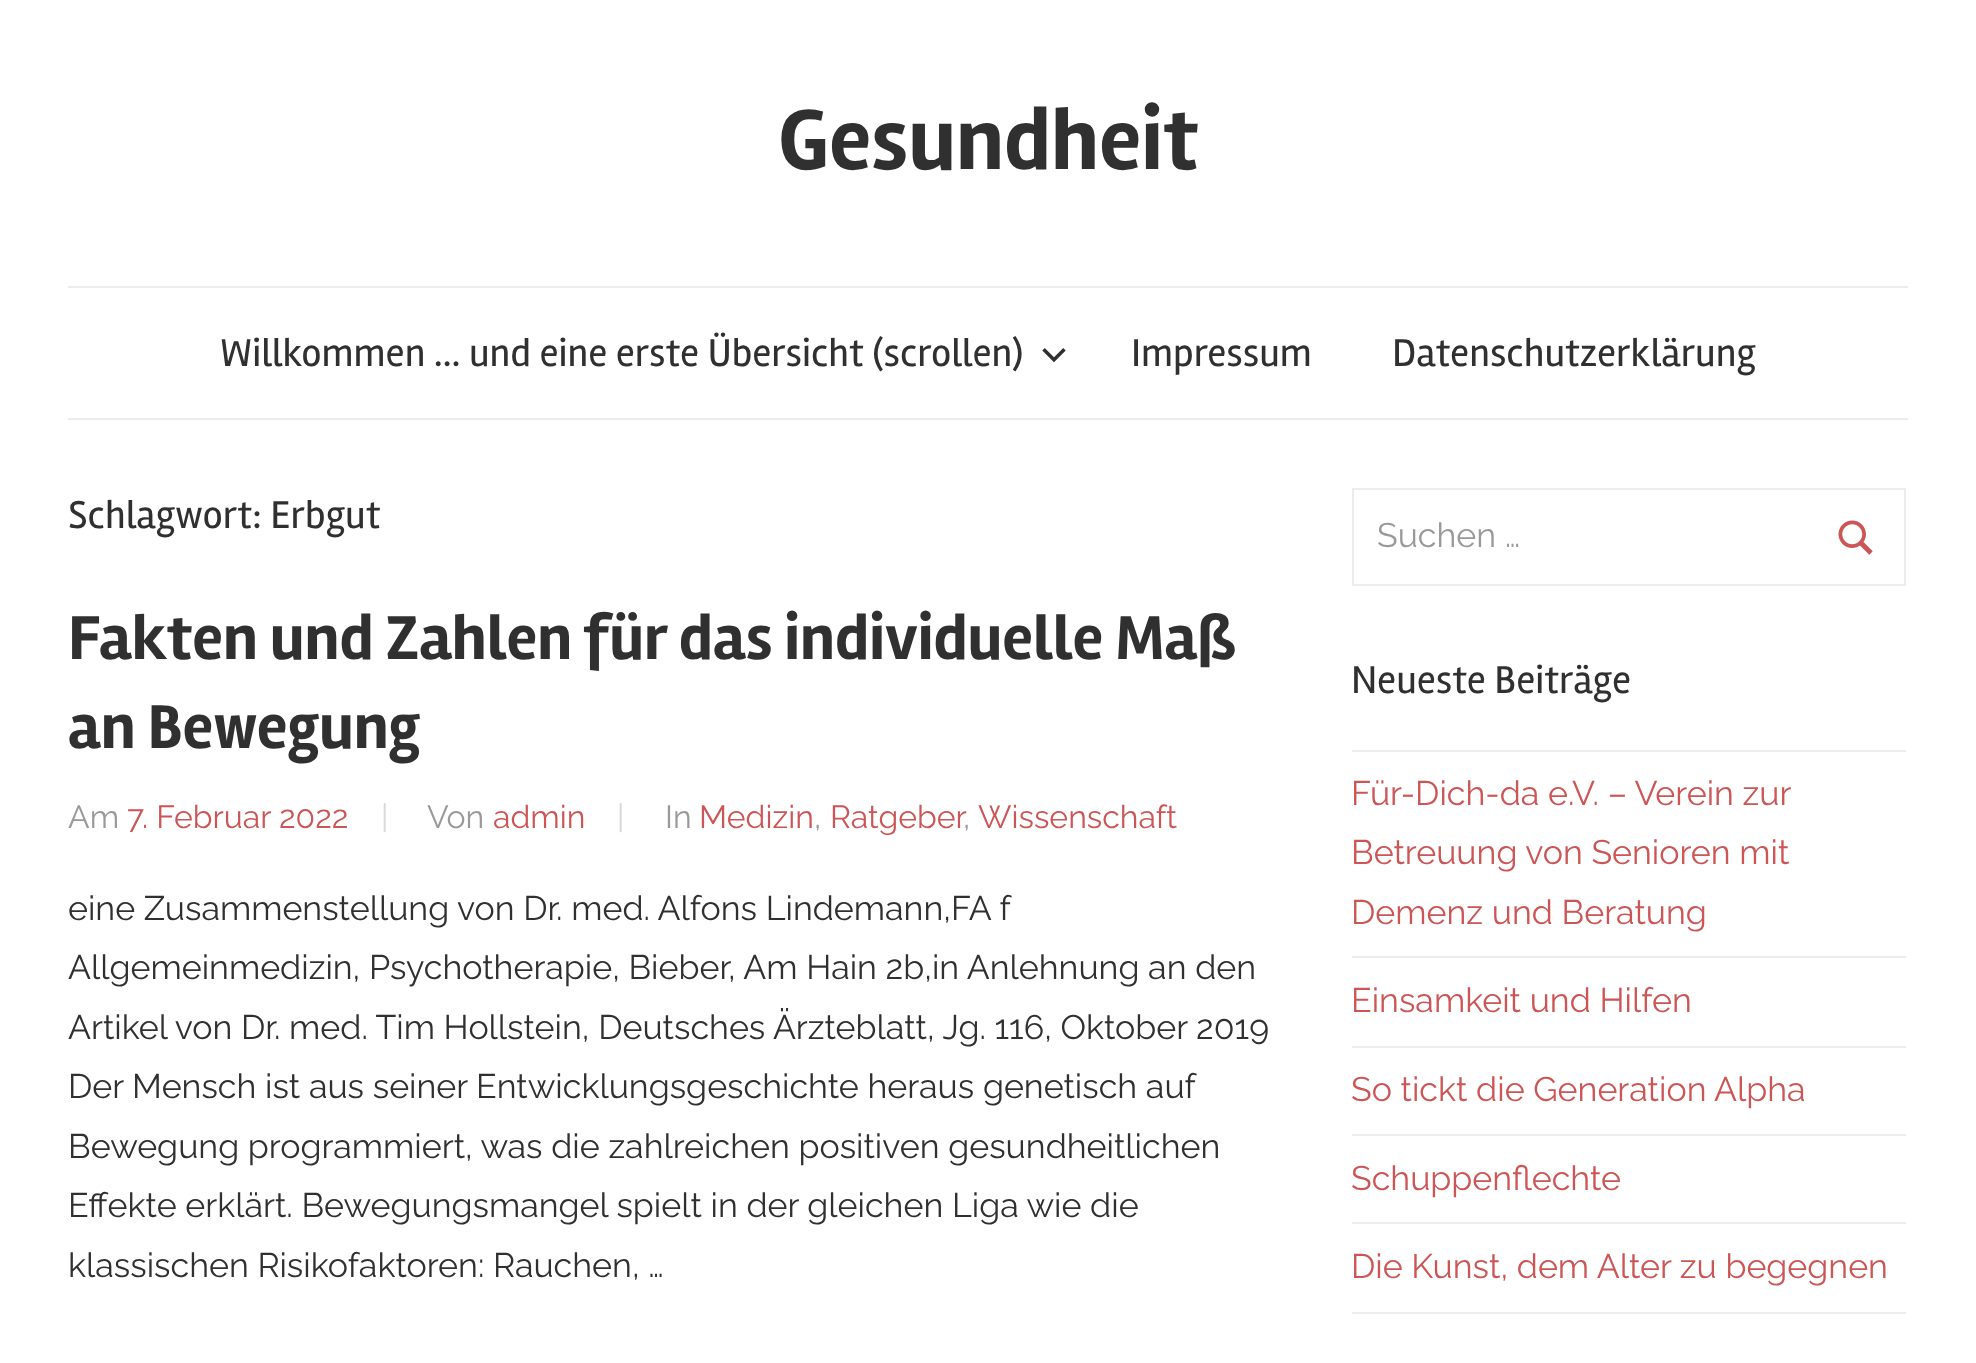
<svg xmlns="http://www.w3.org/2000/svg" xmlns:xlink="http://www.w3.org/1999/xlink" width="1976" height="1363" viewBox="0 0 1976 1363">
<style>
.cls-1{font:bold 88px Rambla;fill:#303030}
.cls-2{font:40px Rambla;fill:#303030}
.cls-3{font:bold 64px Rambla;fill:#303030}
.cls-4{font:100 32px Raleway;fill:#999999}
.cls-5{font:100 32px Raleway;fill:#cc5555}
.cls-6{font:100 32px Raleway;fill:#d9d9d9}
.cls-7{font:100 34px Raleway;fill:#303030}
.cls-8{font:100 34px Raleway;fill:#999999}
.cls-9{font:100 34px Raleway;fill:#cc5555}
</style>
<rect width="100%" height="100%" fill="#ffffff"/>
<rect fill="#ececec" x="68" y="418" width="1840" height="2"/>
<rect fill="#ececec" x="68" y="286" width="1840" height="2"/>
<image xlink:href="image0.png" x="1042" y="348" width="24" height="15"/>
<rect fill="none" stroke="#ececec" stroke-width="2" x="1353" y="489" width="552" height="96"/>
<image xlink:href="image1.png" x="1838" y="520" width="35" height="35"/>
<rect fill="#ececec" x="1352" y="750" width="554" height="2"/>
<rect fill="#ececec" x="1352" y="956" width="554" height="2"/>
<rect fill="#ececec" x="1352" y="1046" width="554" height="2"/>
<rect fill="#ececec" x="1352" y="1134" width="554" height="2"/>
<rect fill="#ececec" x="1352" y="1222" width="554" height="2"/>
<rect fill="#ececec" x="1352" y="1312" width="554" height="2"/>
<text class="cls-1" x="778" y="169">Gesundheit</text>
<text class="cls-2" x="220" y="366">Willkommen … und eine erste Übersicht (scrollen)</text>
<text class="cls-2" x="1131" y="366">Impressum</text>
<text class="cls-2" x="1392" y="366">Datenschutzerklärung</text>
<text class="cls-2" x="68" y="528">Schlagwort: Erbgut</text>
<text class="cls-3"><tspan x="68" y="659">Fakten und Zahlen für das individuelle Maß</tspan><tspan x="68" y="748">an Bewegung</tspan></text>
<text class="cls-4" x="68" y="828">Am</text>
<text class="cls-5" x="127" y="828">7. Februar 2022</text>
<text class="cls-6" x="381" y="828">|</text>
<text class="cls-4" x="427" y="828">Von</text>
<text class="cls-5" x="493" y="828">admin</text>
<text class="cls-6" x="617" y="828">|</text>
<text class="cls-4" x="665" y="828">In</text>
<text class="cls-5" x="699" y="828">Medizin</text>
<text class="cls-4" x="814" y="828">,</text>
<text class="cls-5" x="830" y="828">Ratgeber</text>
<text class="cls-4" x="963" y="828">,</text>
<text class="cls-5" x="978" y="828">Wissenschaft</text>
<text class="cls-7"><tspan x="68" y="920">eine Zusammenstellung von Dr. med. Alfons Lindemann,FA f</tspan><tspan x="68" y="979">Allgemeinmedizin, Psychotherapie, Bieber, Am Hain 2b,in Anlehnung an den</tspan><tspan x="68" y="1039">Artikel von Dr. med. Tim Hollstein, Deutsches Ärzteblatt, Jg. 116, Oktober 2019</tspan><tspan x="68" y="1098">Der Mensch ist aus seiner Entwicklungsgeschichte heraus genetisch auf</tspan><tspan x="68" y="1158">Bewegung programmiert, was die zahlreichen positiven gesundheitlichen</tspan><tspan x="68" y="1217">Effekte erklärt. Bewegungsmangel spielt in der gleichen Liga wie die</tspan><tspan x="68" y="1277">klassischen Risikofaktoren: Rauchen, …</tspan></text>
<text class="cls-8" x="1377" y="547">Suchen …</text>
<text class="cls-2" x="1351" y="693">Neueste Beiträge</text>
<text class="cls-9"><tspan x="1351" y="805">Für-Dich-da e.V. – Verein zur</tspan><tspan x="1351" y="864">Betreuung von Senioren mit</tspan><tspan x="1351" y="924">Demenz und Beratung</tspan></text>
<text class="cls-9" x="1351" y="1012">Einsamkeit und Hilfen</text>
<text class="cls-9" x="1351" y="1101">So tickt die Generation Alpha</text>
<text class="cls-9" x="1351" y="1190">Schuppenflechte</text>
<text class="cls-9" x="1351" y="1278">Die Kunst, dem Alter zu begegnen</text>
</svg>
